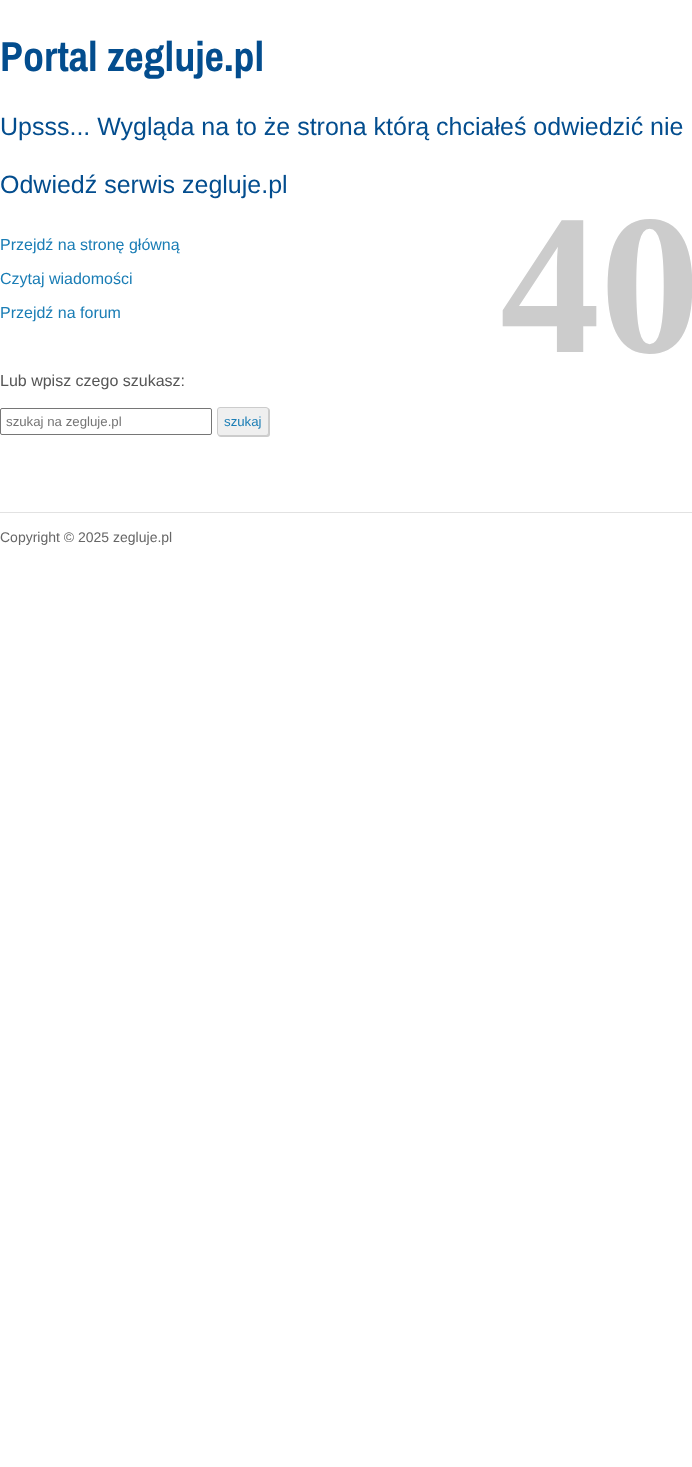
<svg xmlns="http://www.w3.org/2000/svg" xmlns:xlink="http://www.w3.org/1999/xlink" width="692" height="1467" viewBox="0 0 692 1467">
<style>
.cls-1{font:bold 42px Archivo Narrow;fill:#034d8e}
.cls-2{font:25px Liberation Sans;fill:#034d8e}
.cls-3{font:16px Liberation Sans;fill:#1a7db5}
.cls-4{font:16px Liberation Sans;fill:#555555}
.cls-5{font:13.25px Liberation Sans;fill:#757575}
.cls-6{font:13.25px Liberation Sans;fill:#1a7db5}
.cls-7{font:bold 200px Liberation Serif;fill:#cccccc}
.cls-8{font:14px Liberation Sans;fill:#666666}
</style>
<rect width="100%" height="100%" fill="#ffffff"/>
<rect fill="none" stroke="#767676" x="0.5" y="408.5" width="211" height="26" rx="1.5"/>
<rect fill="#cccccc" filter="blur(0.5px)" x="218" y="408" width="52" height="29" rx="3"/>
<rect fill="#efefef" stroke="#cccccc" x="217.5" y="407.5" width="51" height="28" rx="2.5"/>
<rect fill="#e2e2e2" x="0" y="512" width="692" height="1"/>
<text class="cls-1" x="0" y="71">Portal zegluje.pl</text>
<text class="cls-2" x="0" y="135">Upsss... Wygląda na to że strona którą chciałeś odwiedzić nie</text>
<text class="cls-2" x="0" y="193">Odwiedź serwis zegluje.pl</text>
<text class="cls-3" x="0" y="250">Przejdź na stronę główną</text>
<text class="cls-3" x="0" y="284">Czytaj wiadomości</text>
<text class="cls-3" x="0" y="318">Przejdź na forum</text>
<text class="cls-4" x="0" y="386">Lub wpisz czego szukasz:</text>
<text class="cls-5" x="6" y="426">szukaj na zegluje.pl</text>
<text class="cls-6" x="224" y="426">szukaj</text>
<text class="cls-7" x="500" y="352">40</text>
<text class="cls-8" x="0" y="542">Copyright © 2025 zegluje.pl</text>
</svg>
